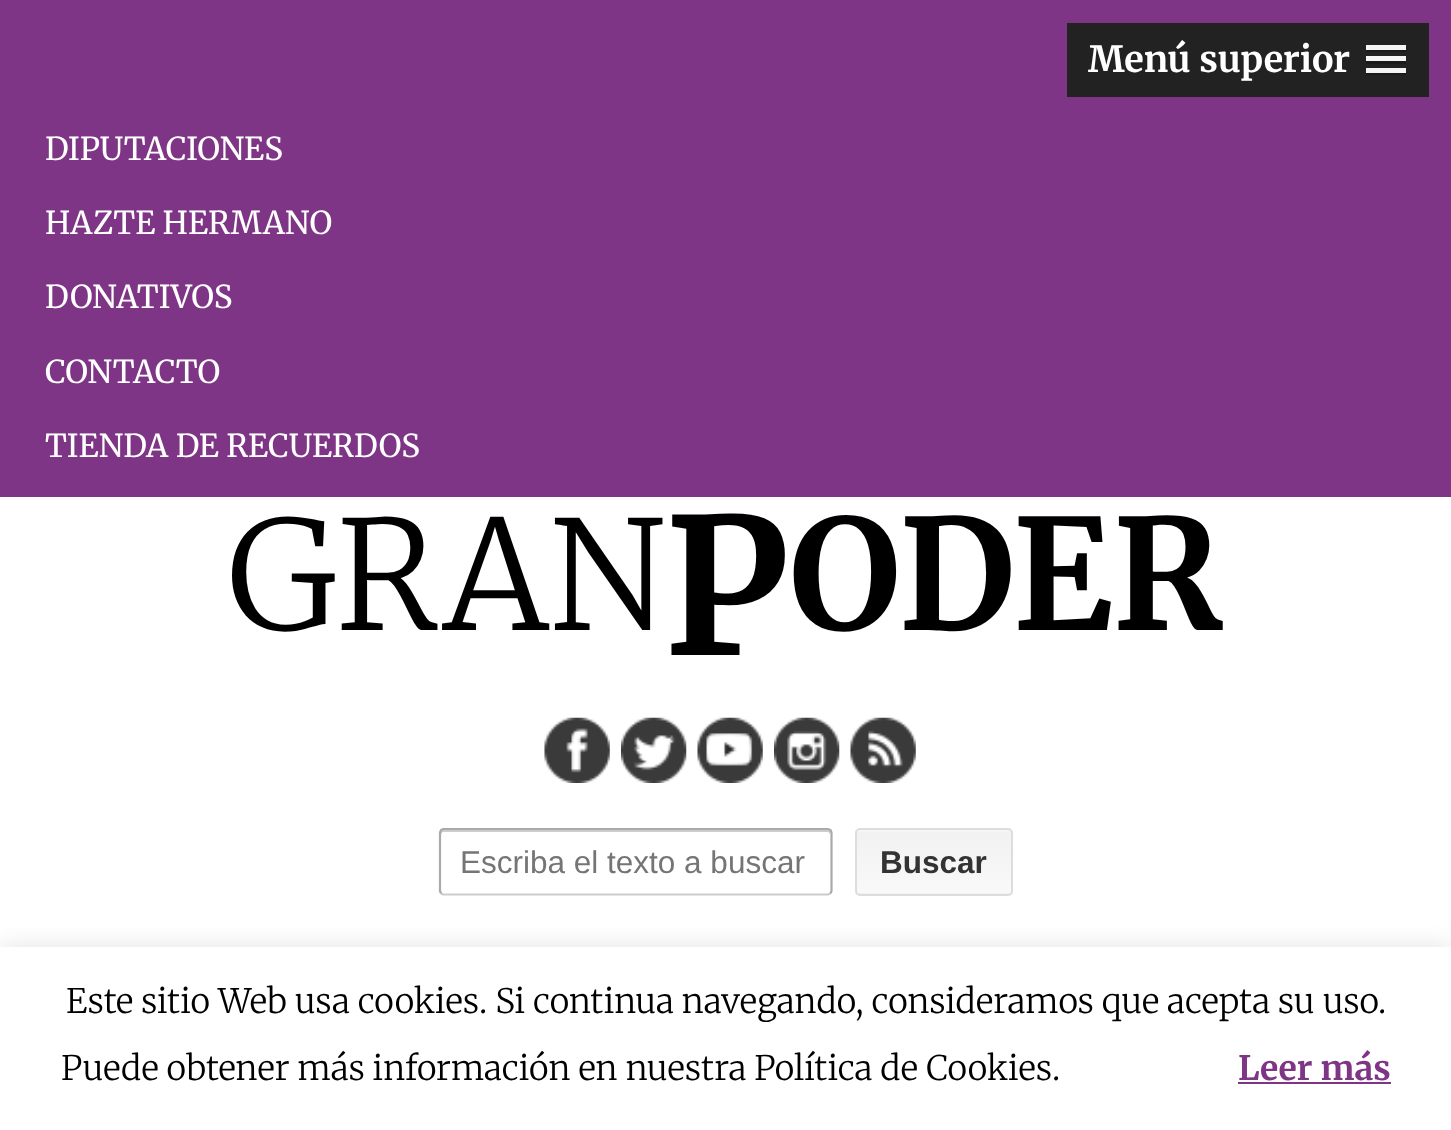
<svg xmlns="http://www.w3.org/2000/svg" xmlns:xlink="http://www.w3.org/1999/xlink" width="1451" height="1130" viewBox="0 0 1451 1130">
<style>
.cls-1{font:bold 36px Merriweather;fill:#ffffff}
.cls-2{font:31.5px Merriweather;fill:#ffffff}
.cls-3{font:300 151px Merriweather;fill:#000000}
.cls-4{font:bold 189px Merriweather;fill:#000000}
.cls-5{font:bold 153px Merriweather;fill:#000000}
.cls-6{font:31.5px Liberation Sans;fill:#757575}
.cls-7{font:bold 31.5px Liberation Sans;fill:#333333}
.cls-8{font:300 33.75px Merriweather;fill:#000000}
.cls-9{font:bold 33.75px Merriweather;fill:#7e3585}
</style>
<defs>
<clipPath id="clip1"><rect x="855" y="828" width="158" height="68" rx="5"/></clipPath>
<linearGradient id="g1" gradientUnits="userSpaceOnUse" x1="934" y1="893" x2="934" y2="830"><stop offset="0" stop-color="#f9f9f9"/><stop offset="1" stop-color="#f1f1f1"/></linearGradient>
<linearGradient id="g2" gradientUnits="userSpaceOnUse" x1="934" y1="956" x2="934" y2="893"><stop offset="0" stop-color="#f9f9f9"/><stop offset="1" stop-color="#f1f1f1"/></linearGradient>
</defs>
<rect width="100%" height="100%" fill="#ffffff"/>
<rect fill="#7e3585" x="0" y="0" width="1451" height="497"/>
<rect fill="#222222" x="1067" y="23" width="362" height="74"/>
<rect fill="#1a1a1a" x="1366" y="50" width="40" height="2"/>
<rect fill="#f5f5f5" x="1366" y="45" width="40" height="5"/>
<rect fill="#1a1a1a" x="1366" y="61" width="40" height="3"/>
<rect fill="#f5f5f5" x="1366" y="56" width="40" height="5"/>
<rect fill="#1a1a1a" x="1366" y="73" width="40" height="2"/>
<rect fill="#f5f5f5" x="1366" y="68" width="40" height="5"/>
<image xlink:href="image0.png" x="544" y="717" width="66" height="66"/>
<image xlink:href="image1.png" x="621" y="717" width="66" height="66"/>
<image xlink:href="image2.png" x="697" y="717" width="66" height="66"/>
<image xlink:href="image3.png" x="774" y="717" width="66" height="66"/>
<image xlink:href="image4.png" x="850" y="717" width="66" height="66"/>
<path fill="#cccccc" d="M443 832H828C829 832 830 834 830 835C830 833 831 830 828 830H442C440 831 441 834 441 835C441 834 442 832 443 832Z"/>
<path fill="none" stroke="#cccccc" stroke-width="2.2" d="M830.5 893.5L828 894.5H443L441 893.5"/>
<path fill="none" stroke="#aaaaaa" stroke-width="2.2" d="M441 893.5L440 891V832.5L441 830L443 829H828L830.5 830L831.5 832.5V891L830.5 893.5"/>
<g clip-path="url(#clip1)">
<rect fill="url(#g1)" x="855" y="830" width="158" height="63"/>
<rect fill="url(#g2)" x="855" y="893" width="158" height="3"/>
</g>
<path fill="#f5f5f5" d="M860 832H1008C1009 832 1010 834 1010 835V832C1010 831 1009 830 1008 830H859C858 830 857 831 857 832V835C857 834 858 832 860 832Z"/>
<rect fill="none" stroke="#dddddd" stroke-width="2" x="856" y="829" width="156" height="66" rx="4"/>
<rect fill="#acabab" fill-opacity="0.3" filter="blur(11px)" x="0" y="945" width="1451" height="185"/>
<rect fill="#ffffff" x="0" y="947" width="1451" height="183"/>
<rect fill="#7e3585" x="1238" y="1082" width="153" height="2"/>
<text class="cls-1" x="1088" y="72">Menú superior</text>
<text class="cls-2" x="45" y="160">DIPUTACIONES</text>
<text class="cls-2" x="45" y="234">HAZTE HERMANO</text>
<text class="cls-2" x="45" y="308">DONATIVOS</text>
<text class="cls-2" x="45" y="383">CONTACTO</text>
<text class="cls-2" x="45" y="457">TIENDA DE RECUERDOS</text>
<text class="cls-3" x="228" y="630">GRAN</text>
<text class="cls-4" x="664" y="655">P</text>
<text class="cls-5" x="789" y="630">ODER</text>
<text class="cls-6" x="460" y="873">Escriba el texto a buscar</text>
<text class="cls-7" x="880" y="873">Buscar</text>
<text class="cls-8" x="66" y="1013">Este sitio Web usa cookies. Si continua navegando, consideramos que acepta su uso.</text>
<text class="cls-8" x="61" y="1080">Puede obtener más información en nuestra Política de Cookies.</text>
<text class="cls-9" x="1238" y="1080">Leer más</text>
</svg>
